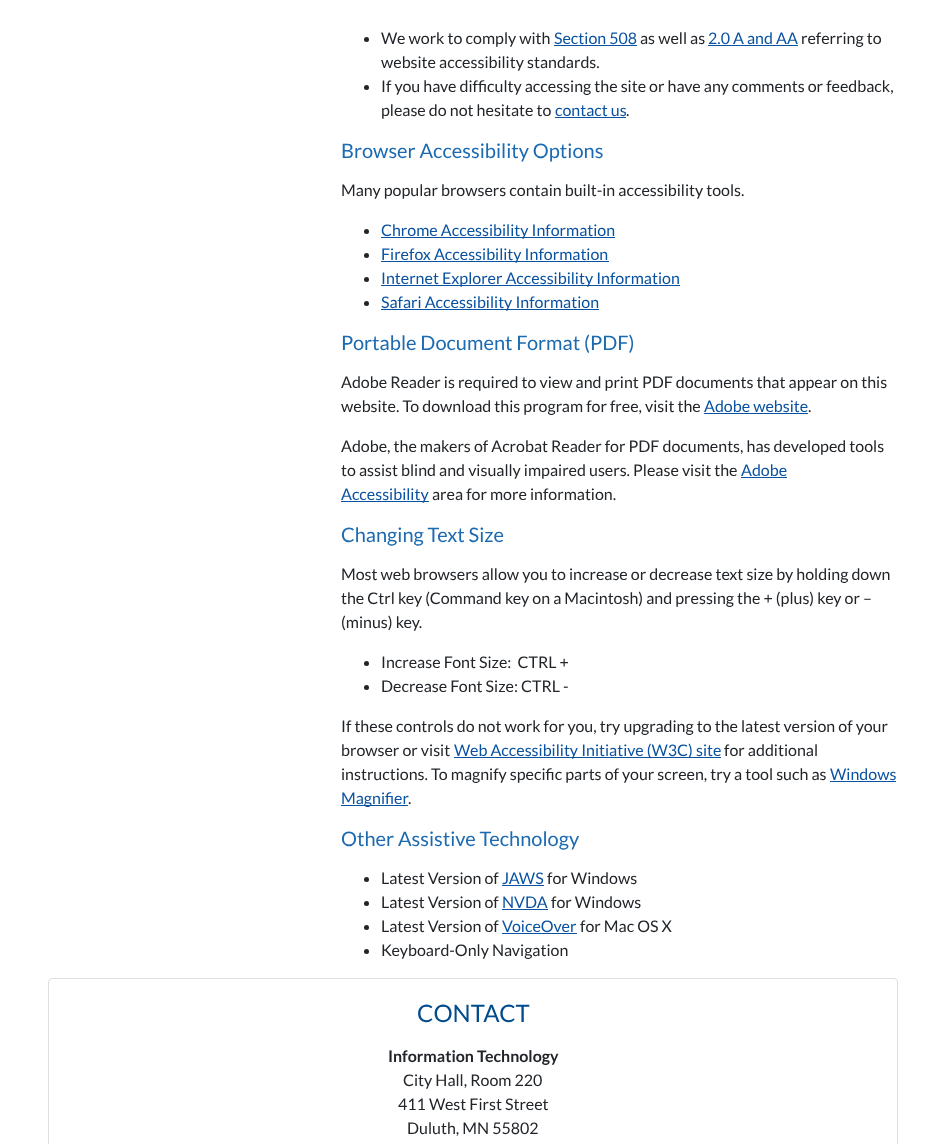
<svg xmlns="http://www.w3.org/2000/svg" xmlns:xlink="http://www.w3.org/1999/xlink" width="946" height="1144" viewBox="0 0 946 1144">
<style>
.cls-1{font:16px Lato;fill:#212529}
.cls-2{font:16px Lato;fill:#0952a1}
.cls-3{font:20px Lato;fill:#1c6ab0}
.cls-4{font:24px Lato;fill:#004b8d}
.cls-5{font:bold 16px Lato;fill:#212529}
</style>
<rect width="100%" height="100%" fill="#ffffff"/>
<circle fill="#212529" cx="366.5" cy="39.5" r="2.5"/>
<rect fill="#0952a1" x="554" y="45" width="83" height="1"/>
<rect fill="#0952a1" x="708" y="45" width="90" height="1"/>
<circle fill="#212529" cx="366.5" cy="87.5" r="2.5"/>
<rect fill="#0952a1" x="555" y="117" width="71" height="1"/>
<circle fill="#212529" cx="366.5" cy="231.5" r="2.5"/>
<rect fill="#0952a1" x="381" y="237" width="234" height="1"/>
<circle fill="#212529" cx="366.5" cy="255.5" r="2.5"/>
<rect fill="#0952a1" x="381" y="261" width="228" height="1"/>
<circle fill="#212529" cx="366.5" cy="279.5" r="2.5"/>
<rect fill="#0952a1" x="381" y="285" width="299" height="1"/>
<circle fill="#212529" cx="366.5" cy="303.5" r="2.5"/>
<rect fill="#0952a1" x="381" y="309" width="218" height="1"/>
<rect fill="#0952a1" x="704" y="413" width="104" height="1"/>
<rect fill="#0952a1" x="741" y="477" width="46" height="1"/>
<rect fill="#0952a1" x="341" y="501" width="88" height="1"/>
<circle fill="#212529" cx="366.5" cy="663.5" r="2.5"/>
<circle fill="#212529" cx="366.5" cy="687.5" r="2.5"/>
<rect fill="#0952a1" x="454" y="757" width="267" height="1"/>
<rect fill="#0952a1" x="830" y="781" width="66" height="1"/>
<rect fill="#0952a1" x="341" y="805" width="67" height="1"/>
<circle fill="#212529" cx="366.5" cy="879.5" r="2.5"/>
<rect fill="#0952a1" x="502" y="885" width="42" height="1"/>
<circle fill="#212529" cx="366.5" cy="903.5" r="2.5"/>
<rect fill="#0952a1" x="502" y="909" width="46" height="1"/>
<circle fill="#212529" cx="366.5" cy="927.5" r="2.5"/>
<rect fill="#0952a1" x="502" y="933" width="75" height="1"/>
<circle fill="#212529" cx="366.5" cy="951.5" r="2.5"/>
<rect fill="none" stroke="#dfdfdf" x="48.5" y="978.5" width="849" height="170" rx="3.5"/>
<text class="cls-1" x="381" y="44">We work to comply with</text>
<text class="cls-2" x="554" y="44">Section 508</text>
<text class="cls-1" x="640" y="44">as well as</text>
<text class="cls-2" x="708" y="44">2.0 A and AA</text>
<text class="cls-1" x="801" y="44">referring to</text>
<text class="cls-1"><tspan x="381" y="68">website accessibility standards.</tspan><tspan x="381" y="92">If you have difficulty accessing the site or have any comments or feedback,</tspan><tspan x="381" y="116">please do not hesitate to</tspan></text>
<text class="cls-2" x="555" y="116">contact us</text>
<text class="cls-1" x="626" y="116">.</text>
<text class="cls-3" x="341" y="158">Browser Accessibility Options</text>
<text class="cls-1" x="341" y="196">Many popular browsers contain built-in accessibility tools.</text>
<text class="cls-2"><tspan x="381" y="236">Chrome Accessibility Information</tspan><tspan x="381" y="260">Firefox Accessibility Information</tspan><tspan x="381" y="284">Internet Explorer Accessibility Information</tspan><tspan x="381" y="308">Safari Accessibility Information</tspan></text>
<text class="cls-3" x="341" y="350">Portable Document Format (PDF)</text>
<text class="cls-1"><tspan x="341" y="388">Adobe Reader is required to view and print PDF documents that appear on this</tspan><tspan x="341" y="412">website. To download this program for free, visit the</tspan></text>
<text class="cls-2" x="704" y="412">Adobe website</text>
<text class="cls-1" x="808" y="412">.</text>
<text class="cls-1"><tspan x="341" y="452">Adobe, the makers of Acrobat Reader for PDF documents, has developed tools</tspan><tspan x="341" y="476">to assist blind and visually impaired users. Please visit the</tspan></text>
<text class="cls-2" x="741" y="476">Adobe</text>
<text class="cls-2" x="341" y="500">Accessibility</text>
<text class="cls-1" x="432" y="500">area for more information.</text>
<text class="cls-3" x="341" y="542">Changing Text Size</text>
<text class="cls-1"><tspan x="341" y="580">Most web browsers allow you to increase or decrease text size by holding down</tspan><tspan x="341" y="604">the Ctrl key (Command key on a Macintosh) and pressing the + (plus) key or –</tspan><tspan x="341" y="628">(minus) key.</tspan></text>
<text class="cls-1" xml:space="preserve"><tspan x="381" y="668">Increase Font Size:  CTRL +</tspan><tspan x="381" y="692">Decrease Font Size: CTRL -</tspan></text>
<text class="cls-1"><tspan x="341" y="732">If these controls do not work for you, try upgrading to the latest version of your</tspan><tspan x="341" y="756">browser or visit</tspan></text>
<text class="cls-2" x="454" y="756">Web Accessibility Initiative (W3C) site</text>
<text class="cls-1" x="724" y="756">for additional</text>
<text class="cls-1" x="341" y="780">instructions. To magnify specific parts of your screen, try a tool such as</text>
<text class="cls-2" x="830" y="780">Windows</text>
<text class="cls-2" x="341" y="804">Magnifier</text>
<text class="cls-1" x="408" y="804">.</text>
<text class="cls-3" x="341" y="846">Other Assistive Technology</text>
<text class="cls-1" x="381" y="884">Latest Version of</text>
<text class="cls-2" x="502" y="884">JAWS</text>
<text class="cls-1" x="547" y="884">for Windows</text>
<text class="cls-1" x="381" y="908">Latest Version of</text>
<text class="cls-2" x="502" y="908">NVDA</text>
<text class="cls-1" x="551" y="908">for Windows</text>
<text class="cls-1" x="381" y="932">Latest Version of</text>
<text class="cls-2" x="502" y="932">VoiceOver</text>
<text class="cls-1" x="580" y="932">for Mac OS X</text>
<text class="cls-1" x="381" y="956">Keyboard-Only Navigation</text>
<text class="cls-4" x="417" y="1022">CONTACT</text>
<text class="cls-5" x="388" y="1062">Information Technology</text>
<text class="cls-1" x="403" y="1086">City Hall, Room 220</text>
<text class="cls-1" x="398" y="1110">411 West First Street</text>
<text class="cls-1" x="407" y="1134">Duluth, MN 55802</text>
</svg>
